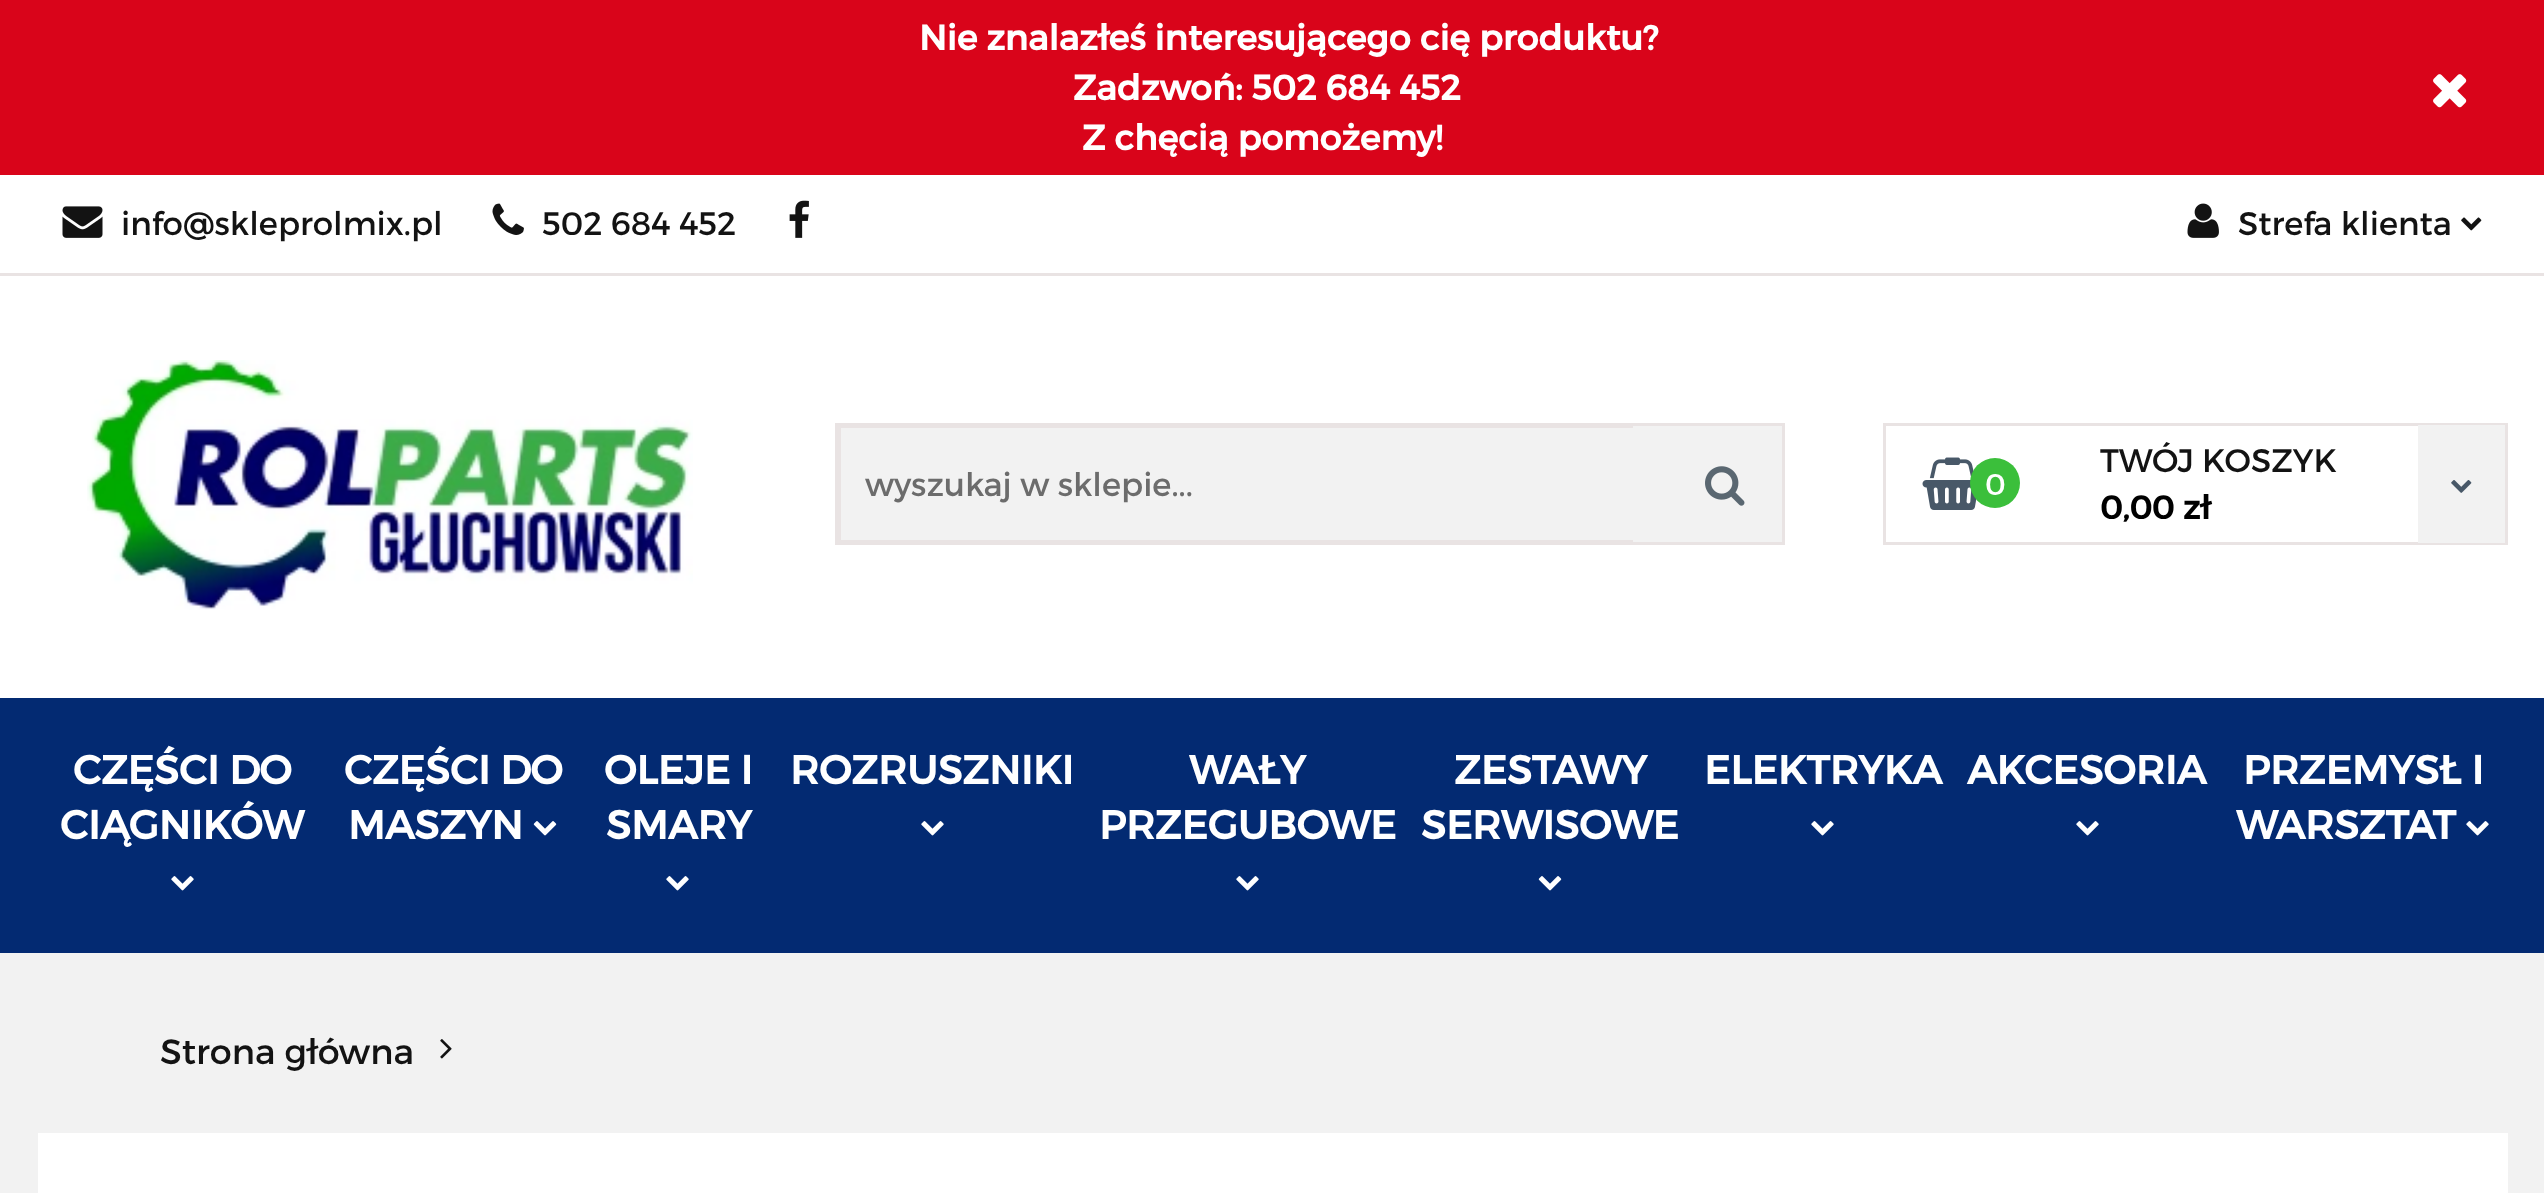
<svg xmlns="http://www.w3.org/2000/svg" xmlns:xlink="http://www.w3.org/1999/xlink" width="2544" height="1193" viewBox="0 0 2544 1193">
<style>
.cls-1{font:bold 35px Montserrat;fill:#ffffff}
.cls-2{font:32.5px Montserrat;fill:#131313}
.cls-3{font:32.5px Montserrat;fill:#6c6c6c}
.cls-4{font:30px Montserrat;fill:#ffffff}
.cls-5{font:bold 32.5px Montserrat;fill:#000000}
.cls-6{font:bold 40px Montserrat;fill:#ffffff}
.cls-7{font:35px Montserrat;fill:#131313}
</style>
<rect width="100%" height="100%" fill="#f2f2f2"/>
<rect fill="#ffffff" x="0" y="175" width="2544" height="523"/>
<rect fill="#d9041a" x="0" y="0" width="2544" height="175"/>
<image xlink:href="image0.png" x="2433" y="74" width="34" height="34"/>
<image xlink:href="image1.png" x="62" y="206" width="41" height="32"/>
<image xlink:href="image2.png" x="492" y="203" width="32" height="32"/>
<image xlink:href="image3.png" x="789" y="200" width="20" height="38"/>
<image xlink:href="image4.png" x="2187" y="203" width="32" height="35"/>
<image xlink:href="image5.png" x="2461" y="217" width="21" height="14"/>
<rect fill="#e9e3e3" x="0" y="273" width="2544" height="3"/>
<image xlink:href="image6.png" x="87" y="360" width="606" height="250"/>
<rect fill="#f2f2f2" x="1633" y="426" width="149" height="116"/>
<rect fill="none" stroke="#e9e3e3" stroke-width="3" x="836.5" y="424.5" width="947" height="119"/>
<rect fill="#f2f2f2" x="841" y="428" width="792" height="112"/>
<rect fill="#e9e3e3" x="838" y="426" width="795" height="2"/>
<rect fill="#e9e3e3" x="838" y="540" width="795" height="2"/>
<rect fill="#e9e3e3" x="838" y="425" width="3" height="118"/>
<image xlink:href="image7.png" x="1705" y="466" width="40" height="40"/>
<rect fill="none" stroke="#e9e3e3" stroke-width="3" x="1884.5" y="424.5" width="622" height="119"/>
<image xlink:href="image8.png" x="1922" y="457" width="55" height="53"/>
<circle fill="#3bbf3b" cx="1995" cy="483" r="25"/>
<rect fill="#f2f2f2" x="2418" y="425" width="87" height="118"/>
<image xlink:href="image9.png" x="2451" y="480" width="21" height="13"/>
<rect fill="#032a72" x="0" y="698" width="2544" height="255"/>
<image xlink:href="image10.png" x="171" y="876" width="23" height="15"/>
<image xlink:href="image11.png" x="533" y="821" width="24" height="15"/>
<image xlink:href="image10.png" x="666" y="876" width="23" height="15"/>
<image xlink:href="image10.png" x="921" y="821" width="23" height="15"/>
<image xlink:href="image10.png" x="1236" y="876" width="23" height="15"/>
<image xlink:href="image11.png" x="1538" y="876" width="24" height="15"/>
<image xlink:href="image10.png" x="1811" y="821" width="23" height="15"/>
<image xlink:href="image10.png" x="2076" y="821" width="23" height="15"/>
<image xlink:href="image10.png" x="2466" y="821" width="23" height="15"/>
<image xlink:href="image12.png" x="440" y="1039" width="12" height="20"/>
<rect fill="#ffffff" x="38" y="1133" width="2470" height="60"/>
<text class="cls-1" x="919" y="50">Nie znalazłeś interesującego cię produktu?</text>
<text class="cls-1" x="1073" y="100">Zadzwoń: 502 684 452</text>
<text class="cls-1" x="1082" y="150">Z chęcią pomożemy!</text>
<text class="cls-2" x="121" y="235">info@skleprolmix.pl</text>
<text class="cls-2" x="542" y="235">502 684 452</text>
<text class="cls-2" x="2238" y="235">Strefa klienta</text>
<text class="cls-3" x="865" y="496">wyszukaj w sklepie...</text>
<text class="cls-4" x="1985" y="495">0</text>
<text class="cls-2" x="2100" y="472">TWÓJ KOSZYK</text>
<text class="cls-5" x="2100" y="519">0,00 zł</text>
<text class="cls-6" x="73" y="784">CZĘŚCI DO</text>
<text class="cls-6" x="60" y="839">CIĄGNIKÓW</text>
<text class="cls-6" x="344" y="784">CZĘŚCI DO</text>
<text class="cls-6" x="348" y="839">MASZYN</text>
<text class="cls-6" x="604" y="784">OLEJE I</text>
<text class="cls-6" x="606" y="839">SMARY</text>
<text class="cls-6" x="790" y="784">ROZRUSZNIKI</text>
<text class="cls-6" x="1189" y="784">WAŁY</text>
<text class="cls-6" x="1099" y="839">PRZEGUBOWE</text>
<text class="cls-6" x="1454" y="784">ZESTAWY</text>
<text class="cls-6" x="1421" y="839">SERWISOWE</text>
<text class="cls-6" x="1704" y="784">ELEKTRYKA</text>
<text class="cls-6" x="1967" y="784">AKCESORIA</text>
<text class="cls-6" x="2243" y="784">PRZEMYSŁ I</text>
<text class="cls-6" x="2236" y="839">WARSZTAT</text>
<text class="cls-7" x="160" y="1064">Strona główna</text>
</svg>
